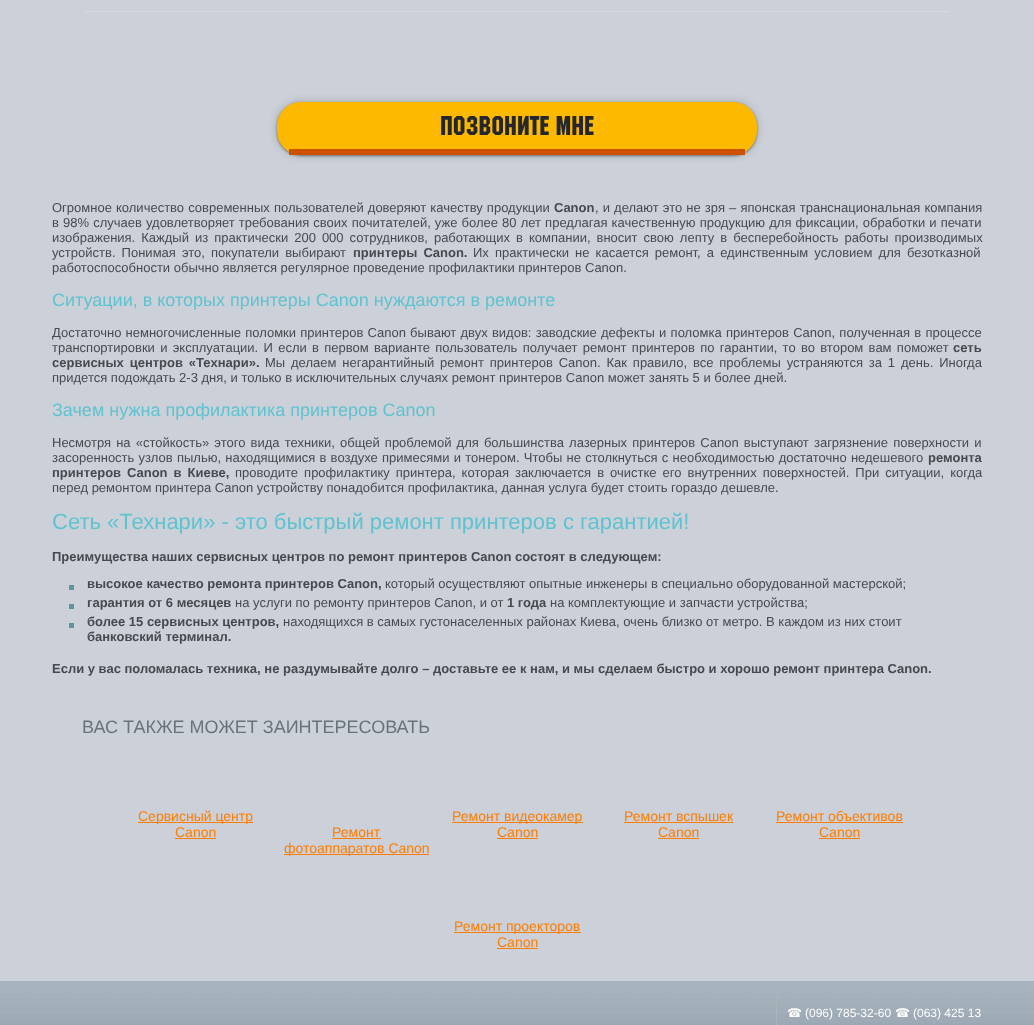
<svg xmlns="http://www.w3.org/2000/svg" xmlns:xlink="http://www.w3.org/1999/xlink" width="1034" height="1025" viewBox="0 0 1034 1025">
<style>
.cls-1{font:27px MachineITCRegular;fill:#25272e}
.cls-2{font:13px Liberation Sans;fill:#47494f}
.cls-3{font:bold 13px Liberation Sans;fill:#47494f}
.cls-4{font:18px Liberation Sans;fill:#5ec3d0}
.cls-5{font:22px Liberation Sans;fill:#5ec3d0}
.cls-6{font:18px Liberation Sans;fill:#69737c}
.cls-7{font:14px Liberation Sans;fill:#ff7d00}
.cls-8{font:12px DejaVu Sans;fill:#ffffff}
.cls-9{font:12px Liberation Sans;fill:#ffffff}
</style>
<rect width="100%" height="100%" fill="#ccd0d8"/>
<rect fill="#d7d9dd" x="85" y="11" width="864" height="1"/>
<rect fill="#000000" fill-opacity="0.2" filter="blur(5px)" x="277" y="102" width="480" height="53" rx="24"/>
<rect fill="#000000" fill-opacity="0.4" filter="blur(1px)" x="277" y="103" width="480" height="53" rx="24"/>
<rect fill="#fdb900" x="277" y="102" width="480" height="53" rx="24"/>
<rect fill="#cc5100" x="289" y="149" width="456" height="6"/>
<rect fill="#60949b" x="69" y="585" width="5" height="5"/>
<rect fill="#60949b" x="69" y="604" width="5" height="5"/>
<rect fill="#60949b" x="69" y="623" width="5" height="5"/>
<rect fill="#ff7d00" x="138" y="822" width="115" height="1"/>
<rect fill="#ff7d00" x="175" y="838" width="41" height="1"/>
<rect fill="#ff7d00" x="332" y="838" width="49" height="1"/>
<rect fill="#ff7d00" x="284" y="854" width="145" height="1"/>
<rect fill="#ff7d00" x="452" y="822" width="131" height="1"/>
<rect fill="#ff7d00" x="497" y="838" width="41" height="1"/>
<rect fill="#ff7d00" x="624" y="822" width="109" height="1"/>
<rect fill="#ff7d00" x="658" y="838" width="41" height="1"/>
<rect fill="#ff7d00" x="776" y="822" width="127" height="1"/>
<rect fill="#ff7d00" x="819" y="838" width="41" height="1"/>
<rect fill="#ff7d00" x="454" y="932" width="127" height="1"/>
<rect fill="#ff7d00" x="497" y="948" width="41" height="1"/>
<image xlink:href="image0.png" x="0" y="981" width="1034" height="44"/>
<rect fill="#aab4bb" x="776" y="996" width="1" height="29"/>
<text class="cls-1" x="440" y="135">ПОЗВОНИТЕ МНЕ</text>
<text class="cls-2" x="52" y="212" word-spacing="0.5">Огромное количество современных пользователей доверяют качеству продукции</text>
<text class="cls-3" x="554" y="212">Canon</text>
<text class="cls-2" x="595" y="212" word-spacing="0.5">, и делают это не зря – японская транснациональная компания</text>
<text class="cls-2"><tspan x="52" y="227" word-spacing="0.5">в 98% случаев удовлетворяет требования своих почитателей, уже более 80 лет предлагая качественную продукцию для фиксации, обработки и печати</tspan><tspan x="52" y="242" word-spacing="2.4">изображения. Каждый из практически 200 000 сотрудников, работающих в компании, вносит свою лепту в бесперебойность работы производимых</tspan><tspan x="52" y="257" word-spacing="2.5">устройств. Понимая это, покупатели выбирают</tspan></text>
<text class="cls-3" x="353" y="257" word-spacing="2.5">принтеры Canon.</text>
<text class="cls-2" x="473" y="257" word-spacing="2.5">Их практически не касается ремонт, а единственным условием для безотказной</text>
<text class="cls-2" x="52" y="272">работоспособности обычно является регулярное проведение профилактики принтеров Canon.</text>
<text class="cls-4" x="52" y="306">Ситуации, в которых принтеры Canon нуждаются в ремонте</text>
<text class="cls-2"><tspan x="52" y="337" word-spacing="0.6">Достаточно немногочисленные поломки принтеров Canon бывают двух видов: заводские дефекты и поломка принтеров Canon, полученная в процессе</tspan><tspan x="52" y="352" word-spacing="1.7">транспортировки и эксплуатации. И если в первом варианте пользователь получает ремонт принтеров по гарантии, то во втором вам поможет</tspan></text>
<text class="cls-3" x="953" y="352">сеть</text>
<text class="cls-3" x="52" y="367" word-spacing="2.25">сервисных центров «Технари».</text>
<text class="cls-2" x="265" y="367" word-spacing="2.25">Мы делаем негарантийный ремонт принтеров Canon. Как правило, все проблемы устраняются за 1 день. Иногда</text>
<text class="cls-2" x="52" y="382">придется подождать 2-3 дня, и только в исключительных случаях ремонт принтеров Canon может занять 5 и более дней.</text>
<text class="cls-4" x="52" y="416">Зачем нужна профилактика принтеров Canon</text>
<text class="cls-2"><tspan x="52" y="447" word-spacing="1.5">Несмотря на «стойкость» этого вида техники, общей проблемой для большинства лазерных принтеров Canon выступают загрязнение поверхности и</tspan><tspan x="52" y="462" word-spacing="0.6">засоренность узлов пылью, находящимися в воздухе примесями и тонером. Чтобы не столкнуться с необходимостью достаточно недешевого</tspan></text>
<text class="cls-3" x="928" y="462">ремонта</text>
<text class="cls-3" x="52" y="477" word-spacing="2.4">принтеров Canon в Киеве,</text>
<text class="cls-2" x="235" y="477" word-spacing="2.4">проводите профилактику принтера, которая заключается в очистке его внутренних поверхностей. При ситуации, когда</text>
<text class="cls-2" x="52" y="492">перед ремонтом принтера Canon устройству понадобится профилактика, данная услуга будет стоить гораздо дешевле.</text>
<text class="cls-5" x="52" y="529">Сеть «Технари» - это быстрый ремонт принтеров с гарантией!</text>
<text class="cls-3" x="52" y="561">Преимущества наших сервисных центров по ремонт принтеров Canon состоят в следующем:</text>
<text class="cls-3" x="87" y="588">высокое качество ремонта принтеров Canon,</text>
<text class="cls-2" x="385" y="588">который осуществляют опытные инженеры в специально оборудованной мастерской;</text>
<text class="cls-3" x="87" y="607">гарантия от 6 месяцев</text>
<text class="cls-2" x="235" y="607">на услуги по ремонту принтеров Canon, и от</text>
<text class="cls-3" x="507" y="607">1 года</text>
<text class="cls-2" x="550" y="607">на комплектующие и запчасти устройства;</text>
<text class="cls-3" x="87" y="626">более 15 сервисных центров,</text>
<text class="cls-2" x="283" y="626">находящихся в самых густонаселенных районах Киева, очень близко от метро. В каждом из них стоит</text>
<text class="cls-3" x="87" y="641">банковский терминал.</text>
<text class="cls-3" x="52" y="673">Если у вас поломалась техника, не раздумывайте долго – доставьте ее к нам, и мы сделаем быстро и хорошо ремонт принтера Canon.</text>
<text class="cls-6" x="82" y="733">ВАС ТАКЖЕ МОЖЕТ ЗАИНТЕРЕСОВАТЬ</text>
<text class="cls-7" x="138" y="821">Сервисный центр</text>
<text class="cls-7" x="175" y="837">Canon</text>
<text class="cls-7" x="332" y="837">Ремонт</text>
<text class="cls-7" x="284" y="853">фотоаппаратов Canon</text>
<text class="cls-7" x="452" y="821">Ремонт видеокамер</text>
<text class="cls-7" x="497" y="837">Canon</text>
<text class="cls-7" x="624" y="821">Ремонт вспышек</text>
<text class="cls-7" x="658" y="837">Canon</text>
<text class="cls-7" x="776" y="821">Ремонт объективов</text>
<text class="cls-7" x="819" y="837">Canon</text>
<text class="cls-7" x="454" y="931">Ремонт проекторов</text>
<text class="cls-7" x="497" y="947">Canon</text>
<text class="cls-8" x="787" y="1017">☎</text>
<text class="cls-9" x="805" y="1017">(096) 785-32-60</text>
<text class="cls-8" x="895" y="1017">☎</text>
<text class="cls-9" x="913" y="1017">(063) 425 13</text>
</svg>
